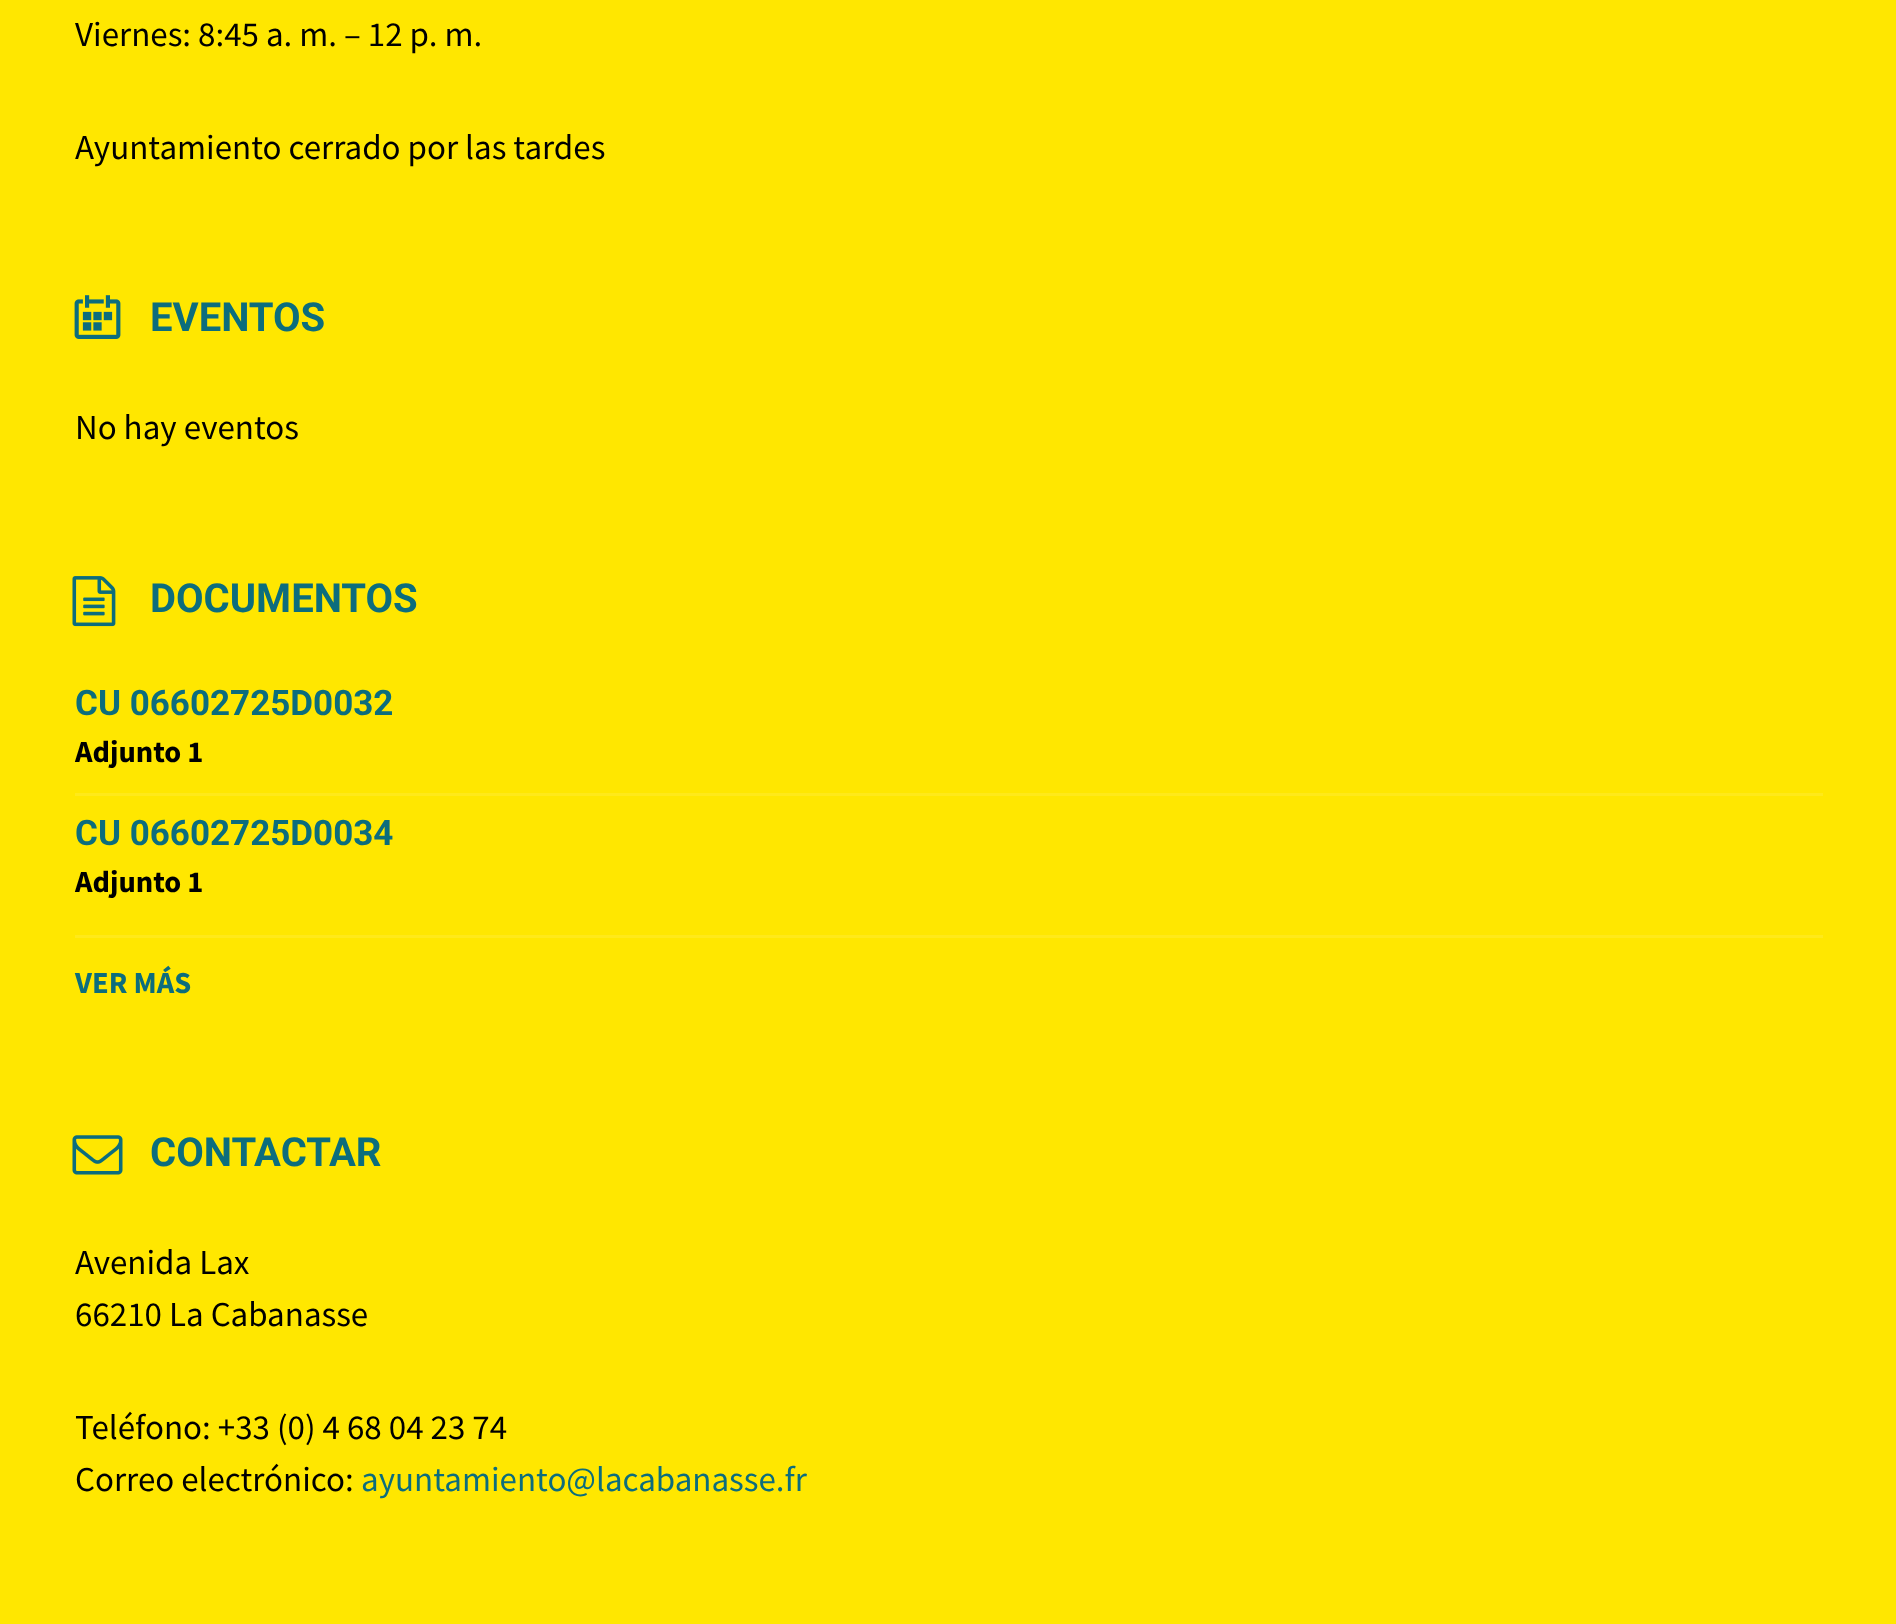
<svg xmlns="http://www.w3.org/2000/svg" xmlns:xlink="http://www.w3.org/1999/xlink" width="1896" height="1624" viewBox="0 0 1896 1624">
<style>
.cls-1{font:35px Source Sans Pro;fill:#000000}
.cls-2{font:bold 40px Roboto;fill:#0c6d7d}
.cls-3{font:bold 35px Roboto;fill:#0c6d7d}
.cls-4{font:bold 30.5px Source Sans Pro;fill:#000000}
.cls-5{font:bold 30.5px Source Sans Pro;fill:#0c6d7d}
.cls-6{font:35px Source Sans Pro;fill:#0c6d7d}
</style>
<rect width="100%" height="100%" fill="#ffe700"/>
<image xlink:href="image0.png" x="74" y="295" width="47" height="44"/>
<image xlink:href="image1.png" x="72" y="576" width="44" height="51"/>
<rect fill="#ffe91a" x="75" y="793" width="1748" height="3"/>
<rect fill="#ffe91a" x="75" y="935" width="1748" height="3"/>
<image xlink:href="image2.png" x="72" y="1135" width="51" height="40"/>
<text class="cls-1" x="75" y="46">Viernes: 8:45 a. m. – 12 p. m.</text>
<text class="cls-1" x="75" y="159">Ayuntamiento cerrado por las tardes</text>
<text class="cls-2" x="150" y="331">EVENTOS</text>
<text class="cls-1" x="75" y="439">No hay eventos</text>
<text class="cls-2" x="150" y="612">DOCUMENTOS</text>
<text class="cls-3" x="75" y="715">CU 06602725D0032</text>
<text class="cls-4" x="75" y="762">Adjunto 1</text>
<text class="cls-3" x="75" y="845">CU 06602725D0034</text>
<text class="cls-4" x="75" y="892">Adjunto 1</text>
<text class="cls-5" x="75" y="993">VER MÁS</text>
<text class="cls-2" x="150" y="1166">CONTACTAR</text>
<text class="cls-1"><tspan x="75" y="1274">Avenida Lax</tspan><tspan x="75" y="1326">66210 La Cabanasse</tspan></text>
<text class="cls-1"><tspan x="75" y="1439">Teléfono: +33 (0) 4 68 04 23 74</tspan><tspan x="75" y="1491">Correo electrónico:</tspan></text>
<text class="cls-6" x="361" y="1491">ayuntamiento@lacabanasse.fr</text>
</svg>
